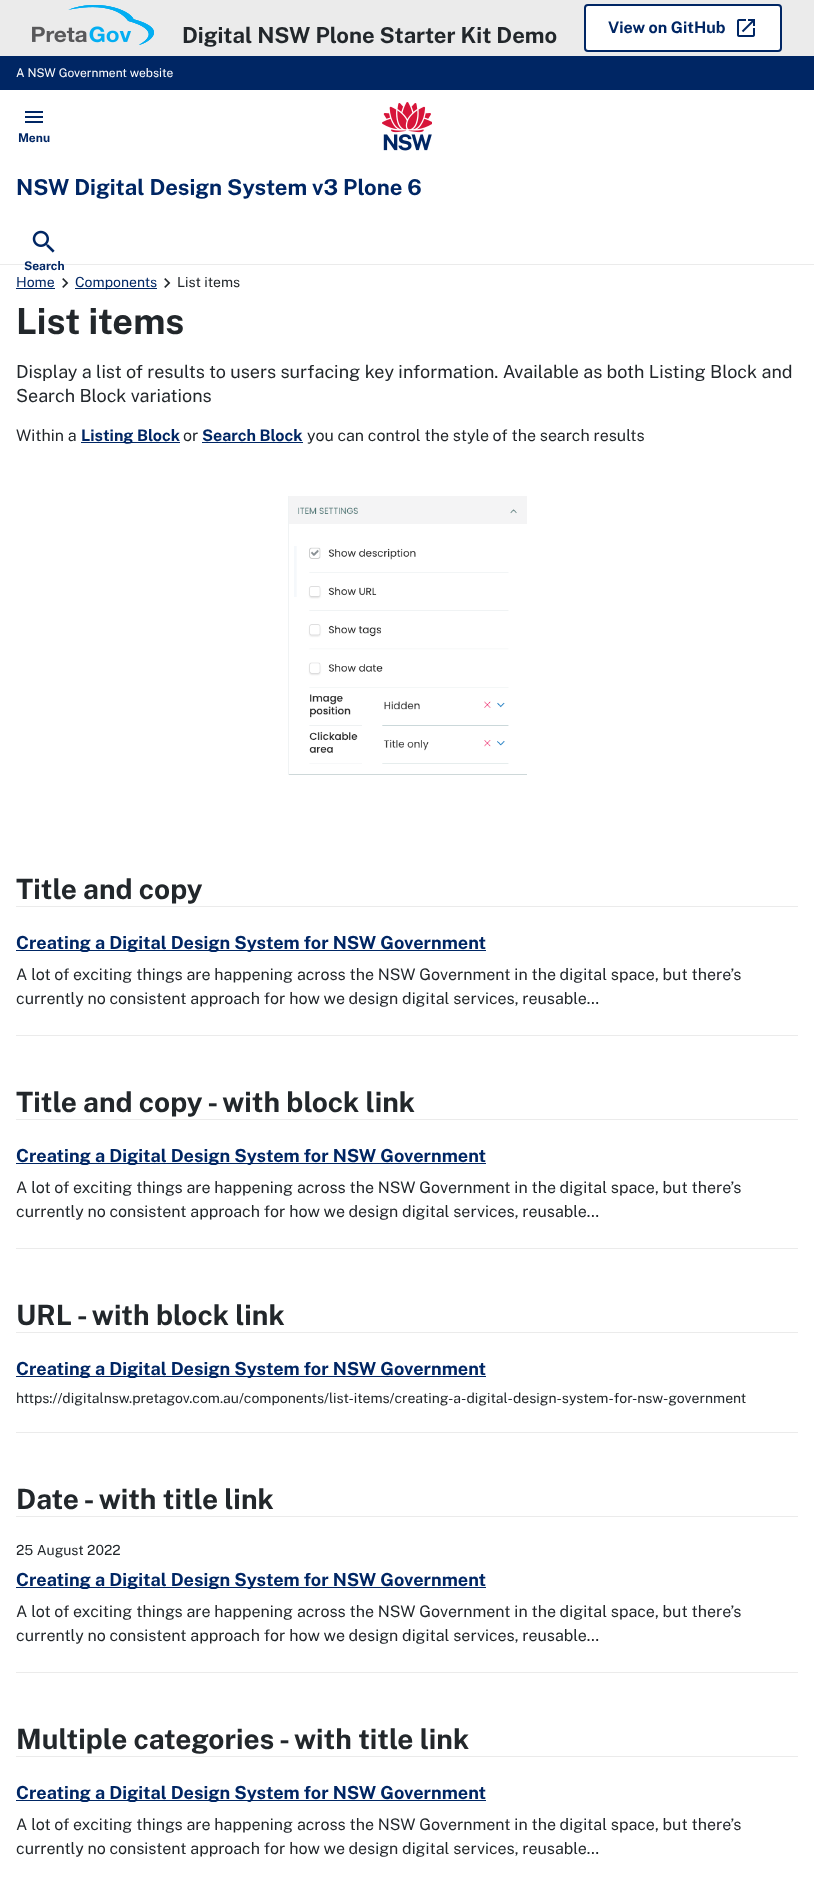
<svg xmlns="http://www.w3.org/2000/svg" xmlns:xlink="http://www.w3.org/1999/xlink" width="814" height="1877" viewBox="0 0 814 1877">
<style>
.cls-1{font:100 22px Public Sans;fill:#22272b}
.cls-2{font:100 16px Public Sans;fill:#002664}
.cls-3{font:100 12px 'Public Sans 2';fill:#ffffff}
.cls-4{font:100 12px Public Sans;fill:#002664}
.cls-5{font:100 22px Public Sans;fill:#002664}
.cls-6{font:100 14px 'Public Sans 2';fill:#002664}
.cls-7{font:100 14px 'Public Sans 2';fill:#22272b}
.cls-8{font:100 36px Public Sans;fill:#22272b}
.cls-9{font:100 18px 'Public Sans 2';fill:#22272b}
.cls-10{font:100 16px 'Public Sans 2';fill:#22272b}
.cls-11{font:100 28px Public Sans;fill:#22272b}
.cls-12{font:100 18px Public Sans;fill:#002664}
</style>
<rect width="100%" height="100%" fill="#ffffff"/>
<rect fill="#ebebeb" x="0" y="0" width="814" height="56"/>
<image xlink:href="image0.png" x="32" y="5" width="122" height="40"/>
<rect fill="#ffffff" stroke="#002664" stroke-width="2" x="585" y="5" width="196" height="46" rx="3"/>
<image xlink:href="image1.png" x="737" y="19" width="18" height="18"/>
<rect fill="#002664" x="0" y="56" width="814" height="34"/>
<rect fill="#ebebeb" x="0" y="264" width="814" height="1"/>
<image xlink:href="image2.png" x="25" y="111" width="18" height="12"/>
<image xlink:href="image3.png" x="32" y="230" width="23" height="23"/>
<image xlink:href="image4.png" x="382" y="102" width="50" height="49"/>
<rect fill="#002664" x="16" y="288" width="39" height="1"/>
<image xlink:href="image5.png" x="62" y="278" width="7" height="10"/>
<rect fill="#002664" x="75" y="288" width="82" height="1"/>
<image xlink:href="image5.png" x="164" y="278" width="7" height="10"/>
<rect fill="#002664" x="81" y="442" width="99" height="1"/>
<rect fill="#002664" x="202" y="442" width="101" height="1"/>
<image xlink:href="image6.png" x="288" y="496" width="239" height="279"/>
<rect fill="#ebebeb" x="16" y="906" width="782" height="1"/>
<rect fill="#ebebeb" x="16" y="1035" width="782" height="1"/>
<rect fill="#002664" x="16" y="950" width="470" height="1"/>
<rect fill="#ebebeb" x="16" y="1119" width="782" height="1"/>
<rect fill="#ebebeb" x="16" y="1248" width="782" height="1"/>
<rect fill="#002664" x="16" y="1163" width="470" height="1"/>
<rect fill="#ebebeb" x="16" y="1332" width="782" height="1"/>
<rect fill="#ebebeb" x="16" y="1432" width="782" height="1"/>
<rect fill="#002664" x="16" y="1376" width="470" height="1"/>
<rect fill="#ebebeb" x="16" y="1516" width="782" height="1"/>
<rect fill="#ebebeb" x="16" y="1672" width="782" height="1"/>
<rect fill="#002664" x="16" y="1587" width="470" height="1"/>
<rect fill="#ebebeb" x="16" y="1756" width="782" height="1"/>
<rect fill="#002664" x="16" y="1800" width="470" height="1"/>
<text class="cls-1" x="182" y="43">Digital NSW Plone Starter Kit Demo</text>
<text class="cls-2" x="608" y="33">View on GitHub</text>
<text class="cls-3" x="16" y="77">A NSW Government website</text>
<text class="cls-4" x="18" y="142">Menu</text>
<text class="cls-4" x="24" y="270">Search</text>
<text class="cls-5" x="16" y="195">NSW Digital Design System v3 Plone 6</text>
<text class="cls-6" x="16" y="287">Home</text>
<text class="cls-6" x="75" y="287">Components</text>
<text class="cls-7" x="177" y="287">List items</text>
<text class="cls-8" x="16" y="334">List items</text>
<text class="cls-9"><tspan x="16" y="378">Display a list of results to users surfacing key information. Available as both Listing Block and</tspan><tspan x="16" y="402">Search Block variations</tspan></text>
<text class="cls-10" x="16" y="441">Within a</text>
<text class="cls-2" x="81" y="441">Listing Block</text>
<text class="cls-10" x="183" y="441">or</text>
<text class="cls-2" x="202" y="441">Search Block</text>
<text class="cls-10" x="307" y="441">you can control the style of the search results</text>
<text class="cls-11" x="16" y="899">Title and copy</text>
<text class="cls-12" x="16" y="949">Creating a Digital Design System for NSW Government</text>
<text class="cls-10"><tspan x="16" y="980">A lot of exciting things are happening across the NSW Government in the digital space, but there’s</tspan><tspan x="16" y="1004">currently no consistent approach for how we design digital services, reusable…</tspan></text>
<text class="cls-11" x="16" y="1112">Title and copy - with block link</text>
<text class="cls-12" x="16" y="1162">Creating a Digital Design System for NSW Government</text>
<text class="cls-10"><tspan x="16" y="1193">A lot of exciting things are happening across the NSW Government in the digital space, but there’s</tspan><tspan x="16" y="1217">currently no consistent approach for how we design digital services, reusable…</tspan></text>
<text class="cls-11" x="16" y="1325">URL - with block link</text>
<text class="cls-12" x="16" y="1375">Creating a Digital Design System for NSW Government</text>
<text class="cls-7" x="16" y="1403">https://digitalnsw.pretagov.com.au/components/list-items/creating-a-digital-design-system-for-nsw-government</text>
<text class="cls-11" x="16" y="1509">Date - with title link</text>
<text class="cls-7" x="16" y="1555">25 August 2022</text>
<text class="cls-12" x="16" y="1586">Creating a Digital Design System for NSW Government</text>
<text class="cls-10"><tspan x="16" y="1617">A lot of exciting things are happening across the NSW Government in the digital space, but there’s</tspan><tspan x="16" y="1641">currently no consistent approach for how we design digital services, reusable…</tspan></text>
<text class="cls-11" x="16" y="1749">Multiple categories - with title link</text>
<text class="cls-12" x="16" y="1799">Creating a Digital Design System for NSW Government</text>
<text class="cls-10"><tspan x="16" y="1830">A lot of exciting things are happening across the NSW Government in the digital space, but there’s</tspan><tspan x="16" y="1854">currently no consistent approach for how we design digital services, reusable…</tspan></text>
</svg>
